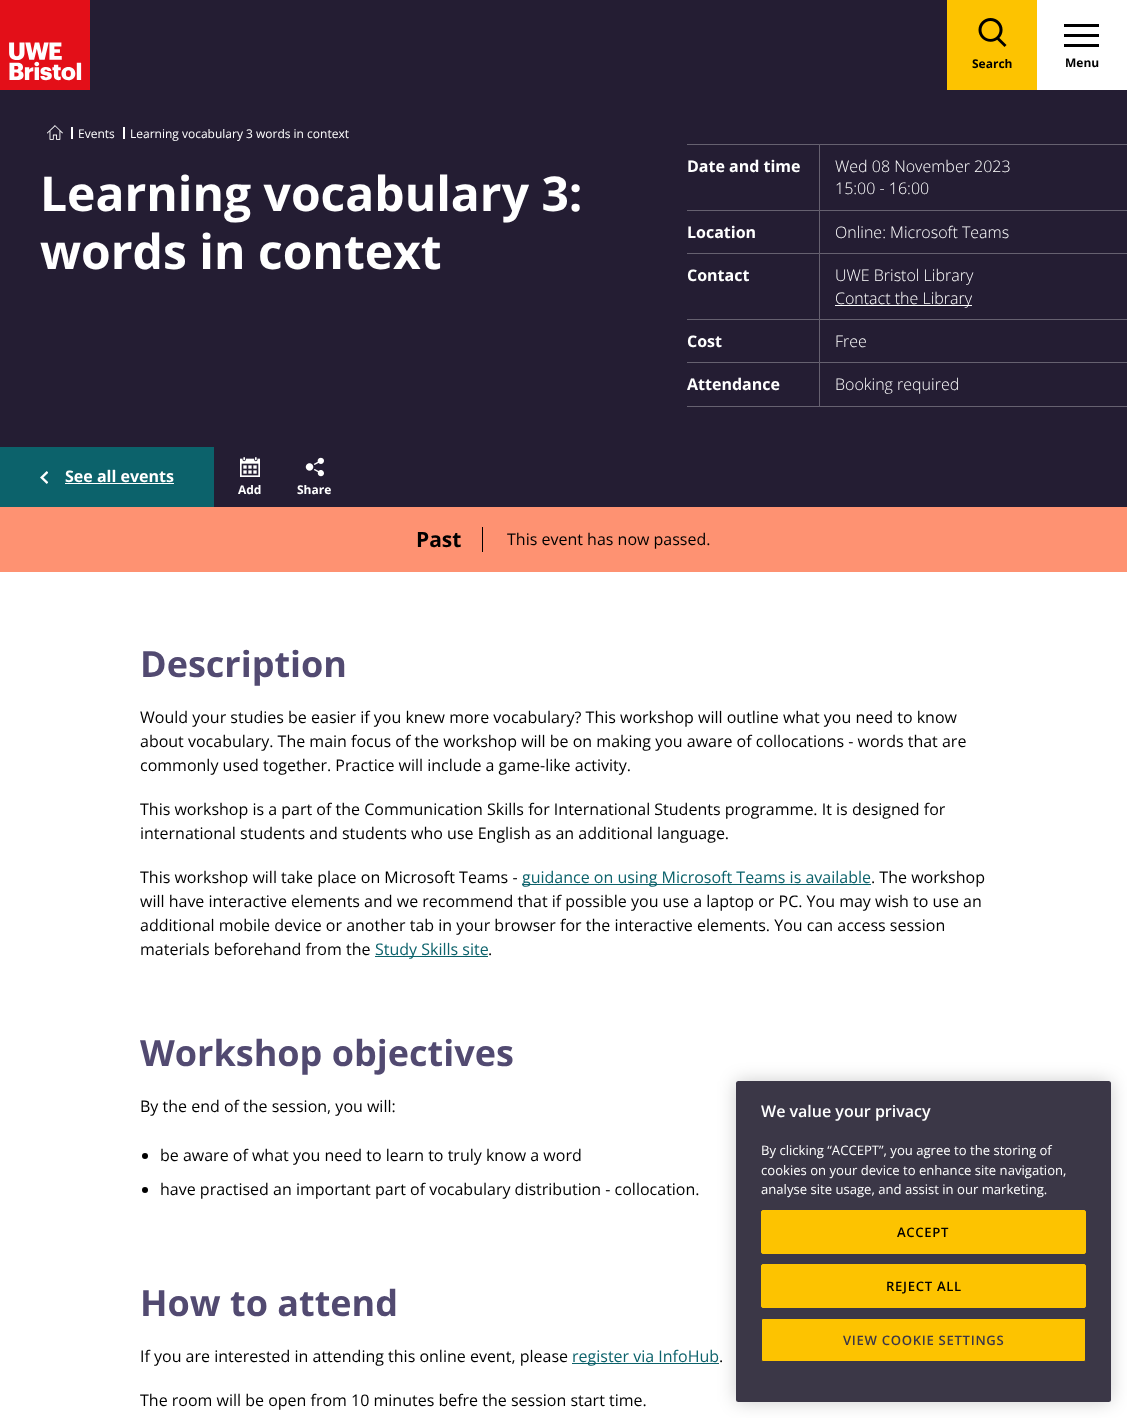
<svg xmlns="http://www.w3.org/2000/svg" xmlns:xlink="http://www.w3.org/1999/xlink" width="1127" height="1418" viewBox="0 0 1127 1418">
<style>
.cls-1{font:bold 12px Open Sans;fill:#000000}
.cls-2{font:12px Open Sans;fill:#ffffff}
.cls-3{font:bold 48px Open Sans;fill:#ffffff}
.cls-4{font:bold 16px Open Sans;fill:#ffffff}
.cls-5{font:300 16px Open Sans;fill:#ffffff}
.cls-6{font:bold 12px Open Sans;fill:#ffffff}
.cls-7{font:bold 21px Open Sans;fill:#000000}
.cls-8{font:16px Open Sans;fill:#000000}
.cls-9{font:bold 36px Open Sans;fill:#524a71}
.cls-10{font:16px Open Sans;fill:#0c626b}
.cls-11{font:600 16px Open Sans;fill:#ffffff}
.cls-12{font:13.1px Open Sans;fill:#ffffff}
.cls-13{font:600 13.1px Open Sans;letter-spacing:0.7px;fill:#000000}
.cls-14{font:600 13.1px Open Sans;letter-spacing:0.7px;fill:#3b3747}
</style>
<rect width="100%" height="100%" fill="#ffffff"/>
<rect fill="#241d33" x="0" y="0" width="1127" height="507"/>
<image xlink:href="image0.png" x="0" y="0" width="90" height="90"/>
<rect fill="#fdc300" x="947" y="0" width="90" height="90"/>
<image xlink:href="image1.png" x="978" y="18" width="29" height="29"/>
<rect fill="#ffffff" x="1037" y="0" width="90" height="90"/>
<rect fill="#000000" x="1064" y="24" width="35" height="3"/>
<rect fill="#000000" x="1064" y="34" width="35" height="3"/>
<rect fill="#000000" x="1064" y="44" width="35" height="3"/>
<image xlink:href="image2.png" x="47" y="125" width="16" height="15"/>
<rect fill="#ffffff" x="71" y="127" width="2" height="12"/>
<rect fill="#ffffff" x="123" y="127" width="2" height="12"/>
<rect fill="#666170" x="687" y="406" width="440" height="1"/>
<rect fill="#666170" x="687" y="144" width="132" height="1"/>
<path fill="#666170" d="M819 144H1127V145H820Z"/>
<path fill="#ffffff" fill-opacity="0.3" d="M819 210V144L820 145V210Z"/>
<rect fill="#666170" x="687" y="210" width="132" height="1"/>
<path fill="#666170" d="M819 210H1127V211H820Z"/>
<path fill="#ffffff" fill-opacity="0.3" d="M819 253V210L820 211V253Z"/>
<rect fill="#666170" x="687" y="253" width="132" height="1"/>
<path fill="#666170" d="M819 253H1127V254H820Z"/>
<path fill="#ffffff" fill-opacity="0.3" d="M819 319V253L820 254V319Z"/>
<rect fill="#ffffff" x="835" y="305" width="137" height="1"/>
<rect fill="#666170" x="687" y="319" width="132" height="1"/>
<path fill="#666170" d="M819 319H1127V320H820Z"/>
<path fill="#ffffff" fill-opacity="0.3" d="M819 362V319L820 320V362Z"/>
<rect fill="#666170" x="687" y="362" width="132" height="1"/>
<path fill="#666170" d="M819 362H1127V363H820Z"/>
<path fill="#ffffff" fill-opacity="0.3" d="M819 406V362L820 363V406Z"/>
<rect fill="#0c626b" x="0" y="447" width="214" height="60"/>
<image xlink:href="image3.png" x="40" y="471" width="8" height="13"/>
<rect fill="#ffffff" x="65" y="483" width="109" height="1"/>
<image xlink:href="image4.png" x="240" y="457" width="20" height="20"/>
<image xlink:href="image5.png" x="305" y="457" width="19" height="20"/>
<rect fill="#fe9272" x="0" y="507" width="1127" height="65"/>
<rect fill="#000000" x="482" y="527" width="1" height="25"/>
<rect fill="#0c626b" x="522" y="884" width="349" height="1"/>
<rect fill="#0c626b" x="375" y="956" width="113" height="1"/>
<circle fill="#000000" cx="145" cy="1156" r="3"/>
<circle fill="#000000" cx="145" cy="1190" r="3"/>
<rect fill="#0c626b" x="572" y="1363" width="147" height="1"/>
<rect fill="#000000" fill-opacity="0.2" filter="blur(9px)" x="736" y="1081" width="375" height="321" rx="2.5"/>
<rect fill="#3b3747" x="736" y="1081" width="375" height="321" rx="2.5"/>
<rect fill="#fdc300" stroke="#fdc300" x="761.5" y="1210.5" width="324" height="43" rx="1.5"/>
<rect fill="#fdc300" stroke="#fdc300" x="761.5" y="1264.5" width="324" height="43" rx="1.5"/>
<rect fill="#fdc300" stroke="#3b3747" x="761.5" y="1318.5" width="324" height="43" rx="1.5"/>
<text class="cls-1" x="972" y="68">Search</text>
<text class="cls-1" x="1065" y="67">Menu</text>
<text class="cls-2" x="78" y="138">Events</text>
<text class="cls-2" x="130" y="138">Learning vocabulary 3 words in context</text>
<text class="cls-3"><tspan x="40" y="211">Learning vocabulary 3:</tspan><tspan x="40" y="269">words in context</tspan></text>
<text class="cls-4" x="687" y="172">Date and time</text>
<text class="cls-5"><tspan x="835" y="172">Wed 08 November 2023</tspan><tspan x="835" y="194">15:00 - 16:00</tspan></text>
<text class="cls-4" x="687" y="238">Location</text>
<text class="cls-5" x="835" y="238">Online: Microsoft Teams</text>
<text class="cls-4" x="687" y="281">Contact</text>
<text class="cls-5"><tspan x="835" y="281">UWE Bristol Library</tspan><tspan x="835" y="304">Contact the Library</tspan></text>
<text class="cls-4" x="687" y="347">Cost</text>
<text class="cls-5" x="835" y="347">Free</text>
<text class="cls-4" x="687" y="390">Attendance</text>
<text class="cls-5" x="835" y="390">Booking required</text>
<text class="cls-4" x="65" y="482">See all events</text>
<text class="cls-6" x="238" y="494">Add</text>
<text class="cls-6" x="297" y="494">Share</text>
<text class="cls-7" x="416" y="547">Past</text>
<text class="cls-8" x="507" y="545">This event has now passed.</text>
<text class="cls-9" x="140" y="677">Description</text>
<text class="cls-8"><tspan x="140" y="723">Would your studies be easier if you knew more vocabulary? This workshop will outline what you need to know</tspan><tspan x="140" y="747">about vocabulary. The main focus of the workshop will be on making you aware of collocations - words that are</tspan><tspan x="140" y="771">commonly used together. Practice will include a game-like activity.</tspan></text>
<text class="cls-8"><tspan x="140" y="815">This workshop is a part of the Communication Skills for International Students programme. It is designed for</tspan><tspan x="140" y="839">international students and students who use English as an additional language.</tspan></text>
<text class="cls-8" x="140" y="883">This workshop will take place on Microsoft Teams -</text>
<text class="cls-10" x="522" y="883">guidance on using Microsoft Teams is available</text>
<text class="cls-8" x="871" y="883">. The workshop</text>
<text class="cls-8"><tspan x="140" y="907">will have interactive elements and we recommend that if possible you use a laptop or PC. You may wish to use an</tspan><tspan x="140" y="931">additional mobile device or another tab in your browser for the interactive elements. You can access session</tspan><tspan x="140" y="955">materials beforehand from the</tspan></text>
<text class="cls-10" x="375" y="955">Study Skills site</text>
<text class="cls-8" x="488" y="955">.</text>
<text class="cls-9" x="140" y="1066">Workshop objectives</text>
<text class="cls-8" x="140" y="1112">By the end of the session, you will:</text>
<text class="cls-8" x="160" y="1161">be aware of what you need to learn to truly know a word</text>
<text class="cls-8" x="160" y="1195">have practised an important part of vocabulary distribution - collocation.</text>
<text class="cls-9" x="140" y="1316">How to attend</text>
<text class="cls-8" x="140" y="1362">If you are interested in attending this online event, please</text>
<text class="cls-10" x="572" y="1362">register via InfoHub</text>
<text class="cls-8" x="719" y="1362">.</text>
<text class="cls-8" x="140" y="1406">The room will be open from 10 minutes befre the session start time.</text>
<text class="cls-11" x="761" y="1117">We value your privacy</text>
<text class="cls-12"><tspan x="761" y="1155">By clicking “ACCEPT”, you agree to the storing of</tspan><tspan x="761" y="1175">cookies on your device to enhance site navigation,</tspan><tspan x="761" y="1194">analyse site usage, and assist in our marketing.</tspan></text>
<text class="cls-13" x="897" y="1237">ACCEPT</text>
<text class="cls-13" x="886" y="1291">REJECT ALL</text>
<text class="cls-14" x="843" y="1345">VIEW COOKIE SETTINGS</text>
</svg>
